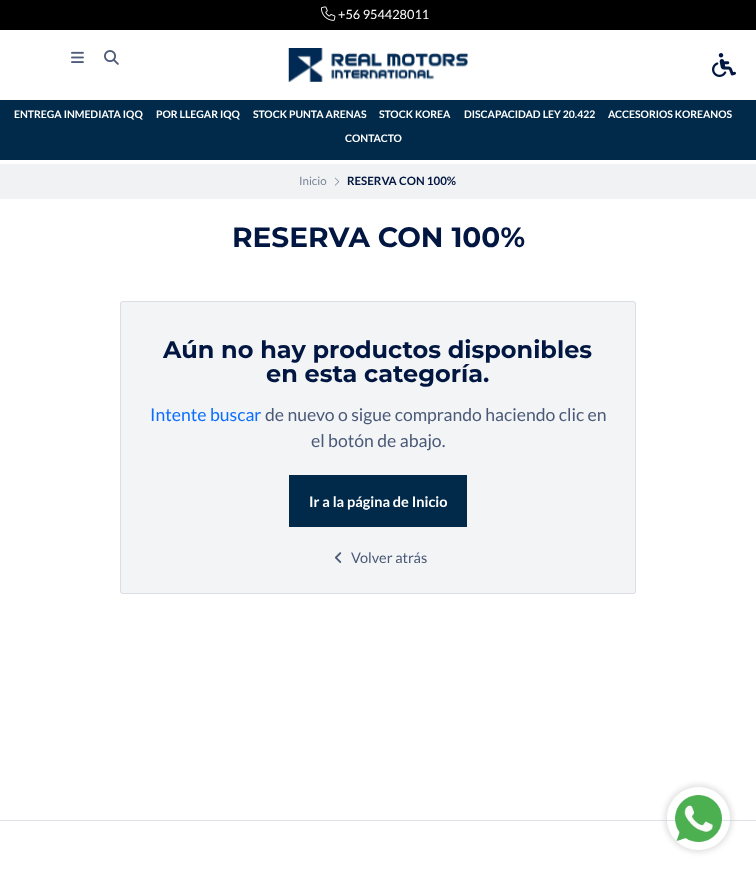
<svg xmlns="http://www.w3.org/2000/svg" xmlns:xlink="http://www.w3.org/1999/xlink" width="756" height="871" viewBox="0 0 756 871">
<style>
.cls-1{font:12.75px Lato;fill:#ffffff}
.cls-2{font:bold 10.4px Lato;fill:#ffffff}
.cls-3{font:11.5px Lato;fill:#79849a}
.cls-4{font:bold 11.5px Lato;fill:#011640}
.cls-5{font:bold 28px Montserrat;fill:#011640}
.cls-6{font:bold 24px Montserrat;fill:#011640}
.cls-7{font:17.6px Lato;fill:#0d6efd}
.cls-8{font:17.6px Lato;fill:#4a5977}
.cls-9{font:bold 14.5px Lato;fill:#ffffff}
.cls-10{font:14.5px Lato;fill:#4a5977}
</style>
<defs>
<clipPath id="clip1"><path d="M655 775H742V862H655ZM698.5 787C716 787 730 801 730 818.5C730 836 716 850 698.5 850C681 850 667 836 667 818.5C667 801 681 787 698.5 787Z" clip-rule="evenodd"/></clipPath>
</defs>
<rect width="100%" height="100%" fill="#ffffff"/>
<rect fill="#000000" x="0" y="0" width="756" height="30"/>
<image xlink:href="image0.png" x="321" y="6" width="15" height="15"/>
<image xlink:href="image1.png" x="71" y="51" width="13" height="12"/>
<image xlink:href="image2.png" x="104" y="50" width="15" height="15"/>
<image xlink:href="image3.png" x="288" y="48" width="180" height="34"/>
<image xlink:href="image4.png" x="712" y="53" width="24" height="24"/>
<rect fill="#012a4a" x="0" y="100" width="756" height="60"/>
<rect fill="#f1f2f3" x="0" y="164" width="756" height="35"/>
<image xlink:href="image5.png" x="334" y="177" width="6" height="9"/>
<rect fill="#f3f4f6" x="120" y="301" width="516" height="293" rx="3"/>
<rect fill="none" stroke="#011640" stroke-opacity="0.1" x="120.5" y="301.5" width="515" height="292" rx="2.5"/>
<rect fill="#012a4a" x="289" y="475" width="178" height="52"/>
<image xlink:href="image6.png" x="335" y="552" width="7" height="11"/>
<rect fill="#dee2e6" x="0" y="820" width="756" height="1"/>
<g clip-path="url(#clip1)">
<rect fill="#cccccc" fill-opacity="0.5" filter="blur(2.5px)" x="664" y="784" width="69" height="69" rx="34.5"/>
</g>
<image xlink:href="image7.png" x="675" y="795" width="47" height="47"/>
<text class="cls-1" x="338" y="19">+56 954428011</text>
<text class="cls-2" x="14" y="118">ENTREGA INMEDIATA IQQ</text>
<text class="cls-2" x="156" y="118">POR LLEGAR IQQ</text>
<text class="cls-2" x="253" y="118">STOCK PUNTA ARENAS</text>
<text class="cls-2" x="379" y="118">STOCK KOREA</text>
<text class="cls-2" x="464" y="118">DISCAPACIDAD LEY 20.422</text>
<text class="cls-2" x="608" y="118">ACCESORIOS KOREANOS</text>
<text class="cls-2" x="345" y="142">CONTACTO</text>
<text class="cls-3" x="299" y="185">Inicio</text>
<text class="cls-4" x="347" y="185">RESERVA CON 100%</text>
<text class="cls-5" x="232" y="247">RESERVA CON 100%</text>
<text class="cls-6" x="163" y="358">Aún no hay productos disponibles</text>
<text class="cls-6" x="266" y="382">en esta categoría.</text>
<text class="cls-7" x="150" y="421">Intente buscar</text>
<text class="cls-8" x="265" y="421">de nuevo o sigue comprando haciendo clic en</text>
<text class="cls-8" x="311" y="447">el botón de abajo.</text>
<text class="cls-9" x="309" y="507">Ir a la página de Inicio</text>
<text class="cls-10" x="351" y="563">Volver atrás</text>
</svg>
